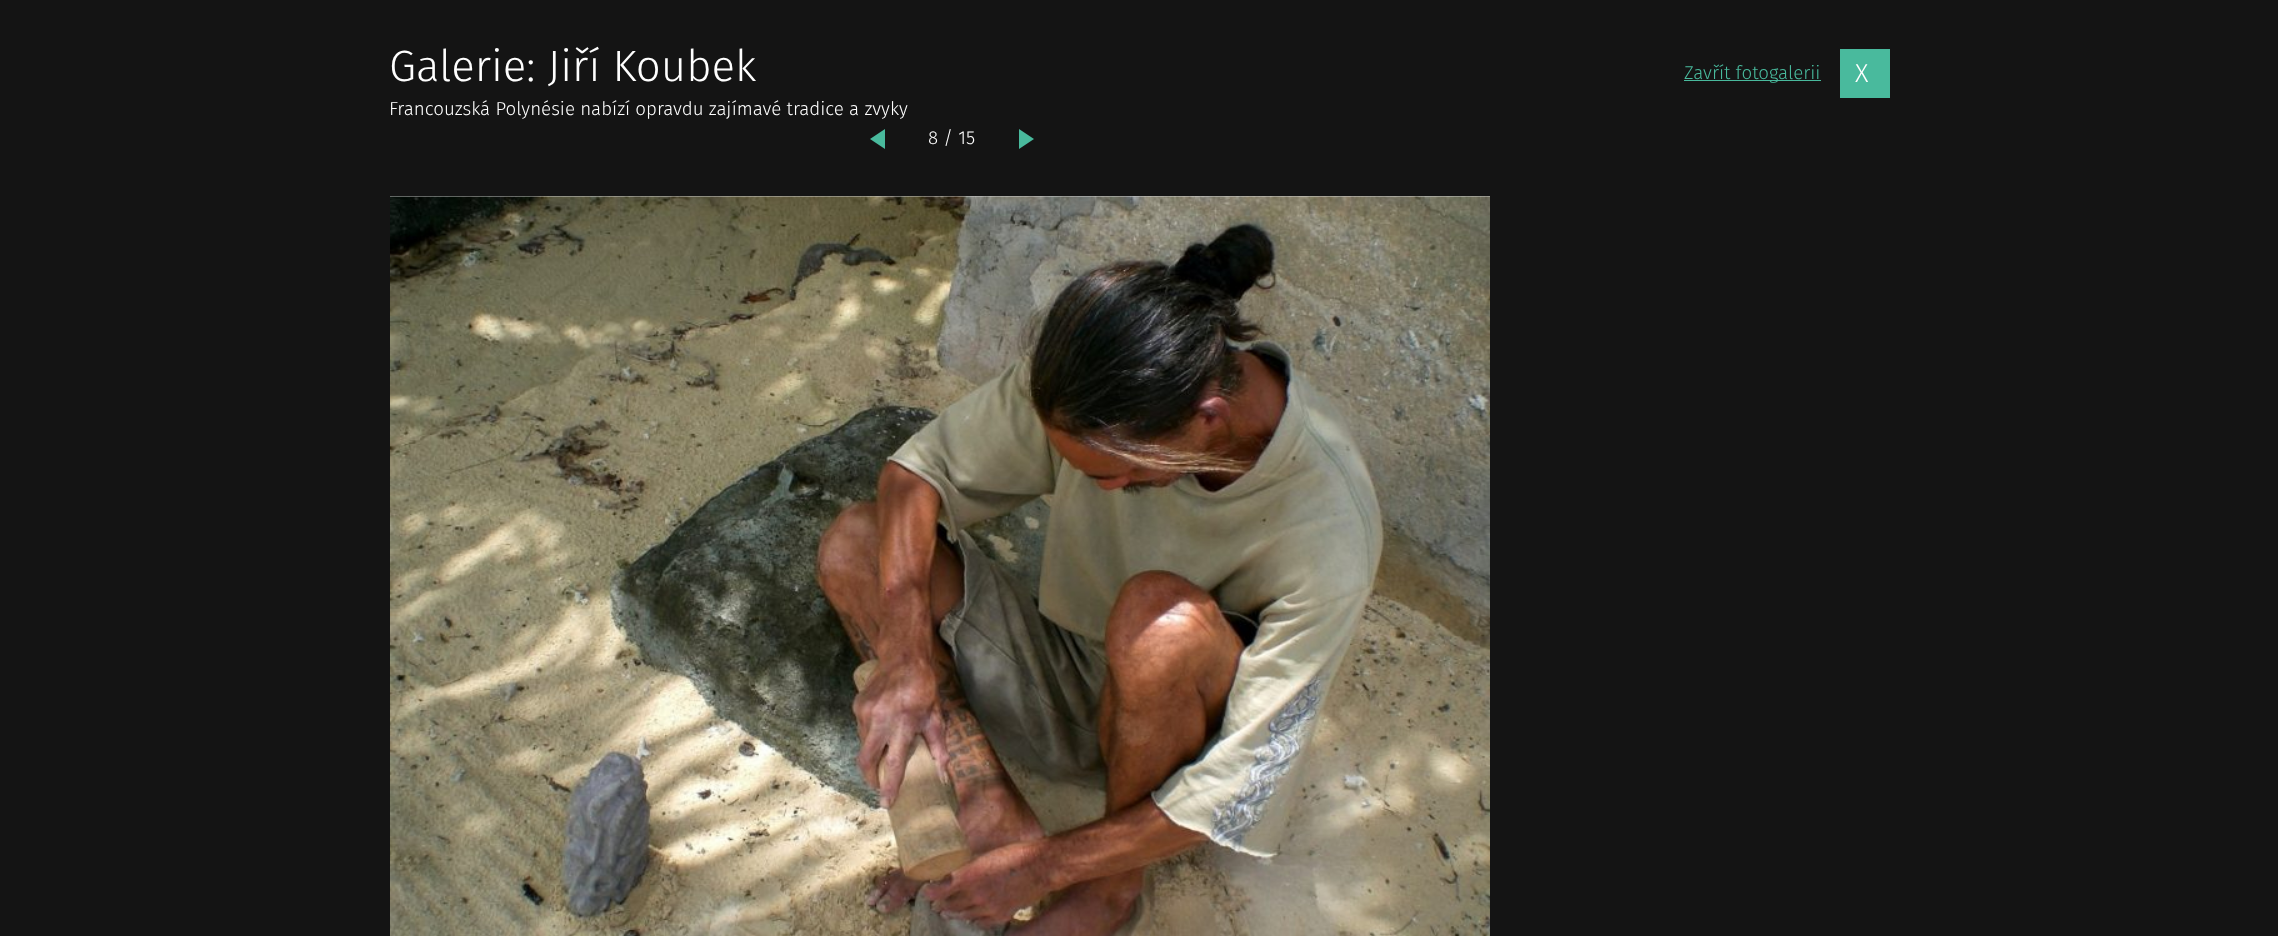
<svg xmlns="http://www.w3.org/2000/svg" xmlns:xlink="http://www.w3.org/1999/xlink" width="2278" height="936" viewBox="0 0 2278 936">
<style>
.cls-1{font:300 43.75px Fira Sans;fill:#ffffff}
.cls-2{font:300 18.75px Fira Sans;fill:#ffffff}
.cls-3{font:300 18.75px Fira Sans;fill:#49ba9d}
.cls-4{font:300 26px Fira Sans;letter-spacing:6px;fill:#ffffff}
</style>
<rect width="100%" height="100%" fill="#141414"/>
<path fill="#49ba9d" d="M885 129V149L870 139Z"/>
<path fill="#49ba9d" d="M1019 149V129L1034 139Z"/>
<rect fill="#49ba9d" x="1684" y="80" width="137" height="1"/>
<rect fill="#49ba9d" x="1840" y="49" width="50" height="49"/>
<rect fill="#dadada" x="390" y="196" width="1100" height="1"/>
<image xlink:href="image0.png" x="390" y="196" width="1100" height="740"/>
<text class="cls-1" x="389" y="81">Galerie: Jiří Koubek</text>
<text class="cls-2" x="389" y="115">Francouzská Polynésie nabízí opravdu zajímavé tradice a zvyky</text>
<text class="cls-2" x="928" y="144">8 / 15</text>
<text class="cls-3" x="1684" y="79">Zavřít fotogalerii</text>
<text class="cls-4" x="1855" y="82">X</text>
</svg>
